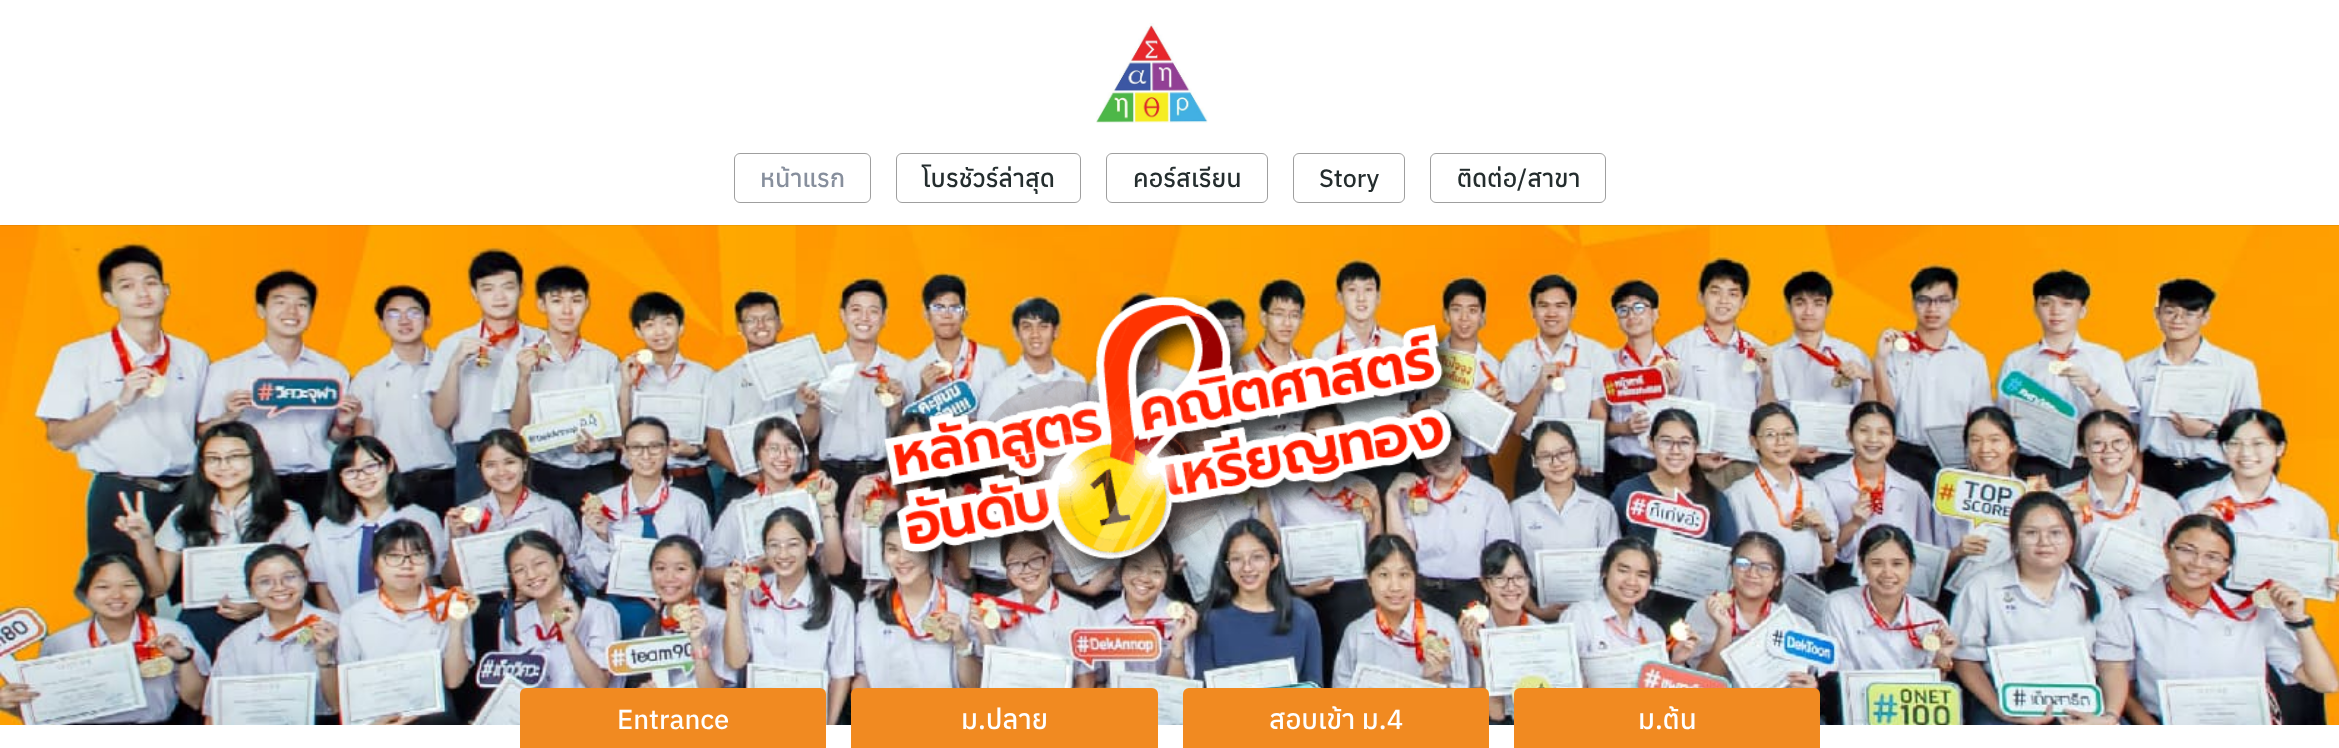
<svg xmlns="http://www.w3.org/2000/svg" xmlns:xlink="http://www.w3.org/1999/xlink" width="2339" height="748" viewBox="0 0 2339 748">
<style>
.cls-1{font:500 25px Anuphan;fill:#878f9d}
.cls-2{font:500 25px Anuphan;fill:#242d2e}
.cls-3{font:500 27.5px Anuphan;fill:#ffffff}
</style>
<defs>
<clipPath id="clip1"><rect x="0" y="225" width="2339" height="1"/></clipPath>
</defs>
<rect width="100%" height="100%" fill="#ffffff"/>
<image xlink:href="image1.png" x="0" y="225" width="2339" height="500"/>
<g clip-path="url(#clip1)">
<rect fill="#000000" fill-opacity="0.2" filter="blur(1px)" x="0" y="0" width="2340" height="225"/>
</g>
<image xlink:href="image0.png" x="1096" y="23" width="112" height="100"/>
<rect fill="none" stroke="#9f9f9f" x="734.5" y="153.5" width="136" height="49" rx="5.5"/>
<rect fill="none" stroke="#9f9f9f" x="896.5" y="153.5" width="184" height="49" rx="5.5"/>
<rect fill="none" stroke="#9f9f9f" x="1106.5" y="153.5" width="161" height="49" rx="5.5"/>
<rect fill="none" stroke="#9f9f9f" x="1293.5" y="153.5" width="111" height="49" rx="5.5"/>
<rect fill="none" stroke="#9f9f9f" x="1430.5" y="153.5" width="175" height="49" rx="5.5"/>
<image xlink:href="image2.png" x="883" y="295" width="587" height="331"/>
<rect fill="#f18a21" x="520" y="688" width="306" height="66" rx="6"/>
<rect fill="#f18a21" x="851" y="688" width="307" height="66" rx="6"/>
<rect fill="#f18a21" x="1183" y="688" width="306" height="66" rx="6"/>
<rect fill="#f18a21" x="1514" y="688" width="306" height="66" rx="6"/>
<text class="cls-1" x="760" y="187">หน้าแรก</text>
<text class="cls-2" x="922" y="187">โบรชัวร์ล่าสุด</text>
<text class="cls-2" x="1133" y="187">คอร์สเรียน</text>
<text class="cls-2" x="1319" y="187">Story</text>
<text class="cls-2" x="1457" y="187">ติดต่อ/สาขา</text>
<text class="cls-3" x="617" y="729">Entrance</text>
<text class="cls-3" x="961" y="729">ม.ปลาย</text>
<text class="cls-3" x="1269" y="729">สอบเข้า ม.4</text>
<text class="cls-3" x="1638" y="729">ม.ต้น</text>
</svg>
